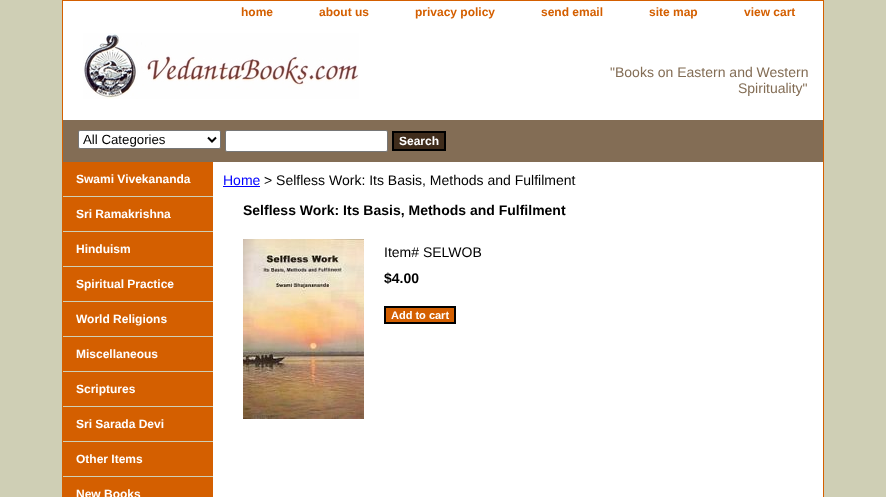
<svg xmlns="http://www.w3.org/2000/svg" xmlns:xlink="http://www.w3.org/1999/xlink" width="886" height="497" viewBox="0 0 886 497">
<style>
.cls-1{font:bold 12px Liberation Sans;fill:#d45f00}
.cls-2{font:14px Liberation Sans;fill:#836d55}
.cls-3{font:13.25px Liberation Sans;fill:#000000}
.cls-4{font:bold 12px Liberation Sans;fill:#ffffff}
.cls-5{font:14px Liberation Sans;fill:#0000ff}
.cls-6{font:14px Liberation Sans;fill:#000000}
.cls-7{font:bold 14px Liberation Sans;fill:#000000}
.cls-8{font:bold 11px Liberation Sans;fill:#ffffff}
</style>
<rect width="100%" height="100%" fill="#cfcfb5"/>
<rect fill="#ffffff" stroke="#d45f00" x="62.5" y="0.5" width="761" height="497"/>
<image xlink:href="image0.png" x="83" y="33" width="276" height="66"/>
<rect fill="#836d55" x="63" y="120" width="760" height="42"/>
<rect fill="#ffffff" stroke="#767676" x="78.5" y="130.5" width="142" height="18" rx="1.5"/>
<path fill="none" stroke="#000000" stroke-width="2" d="M208 137.5L212 141.5L216 137.5"/>
<rect fill="#ffffff" stroke="#767676" x="225.5" y="130.5" width="162" height="21" rx="1.5"/>
<rect fill="#3f2c1b" stroke="#000000" stroke-width="2" x="393" y="132" width="52" height="18"/>
<rect fill="#d45f00" x="63" y="162" width="150" height="335"/>
<rect fill="#cfcfb5" x="63" y="196" width="150" height="1"/>
<rect fill="#cfcfb5" x="63" y="231" width="150" height="1"/>
<rect fill="#cfcfb5" x="63" y="266" width="150" height="1"/>
<rect fill="#cfcfb5" x="63" y="301" width="150" height="1"/>
<rect fill="#cfcfb5" x="63" y="336" width="150" height="1"/>
<rect fill="#cfcfb5" x="63" y="371" width="150" height="1"/>
<rect fill="#cfcfb5" x="63" y="406" width="150" height="1"/>
<rect fill="#cfcfb5" x="63" y="441" width="150" height="1"/>
<rect fill="#cfcfb5" x="63" y="476" width="150" height="1"/>
<rect fill="#0000ff" x="223" y="186" width="37" height="1"/>
<image xlink:href="image1.png" x="243" y="239" width="121" height="180"/>
<rect fill="#d45f00" stroke="#000000" stroke-width="2" x="385" y="307" width="70" height="16"/>
<text class="cls-1" x="241" y="16">home</text>
<text class="cls-1" x="319" y="16">about us</text>
<text class="cls-1" x="415" y="16">privacy policy</text>
<text class="cls-1" x="541" y="16">send email</text>
<text class="cls-1" x="649" y="16">site map</text>
<text class="cls-1" x="744" y="16">view cart</text>
<text class="cls-2" x="610" y="77">"Books on Eastern and Western</text>
<text class="cls-2" x="738" y="93">Spirituality"</text>
<text class="cls-3" x="83" y="144">All Categories</text>
<text class="cls-4" x="399" y="145">Search</text>
<text class="cls-4" x="76" y="183">Swami Vivekananda</text>
<text class="cls-4" x="76" y="218">Sri Ramakrishna</text>
<text class="cls-4" x="76" y="253">Hinduism</text>
<text class="cls-4" x="76" y="288">Spiritual Practice</text>
<text class="cls-4" x="76" y="323">World Religions</text>
<text class="cls-4" x="76" y="358">Miscellaneous</text>
<text class="cls-4" x="76" y="393">Scriptures</text>
<text class="cls-4" x="76" y="428">Sri Sarada Devi</text>
<text class="cls-4" x="76" y="463">Other Items</text>
<text class="cls-4" x="76" y="498">New Books</text>
<text class="cls-5" x="223" y="185">Home</text>
<text class="cls-6" x="264" y="185">&gt; Selfless Work: Its Basis, Methods and Fulfilment</text>
<text class="cls-7" x="243" y="215">Selfless Work: Its Basis, Methods and Fulfilment</text>
<text class="cls-6" x="384" y="257">Item# SELWOB</text>
<text class="cls-7" x="384" y="283">$4.00</text>
<text class="cls-8" x="391" y="319">Add to cart</text>
</svg>
